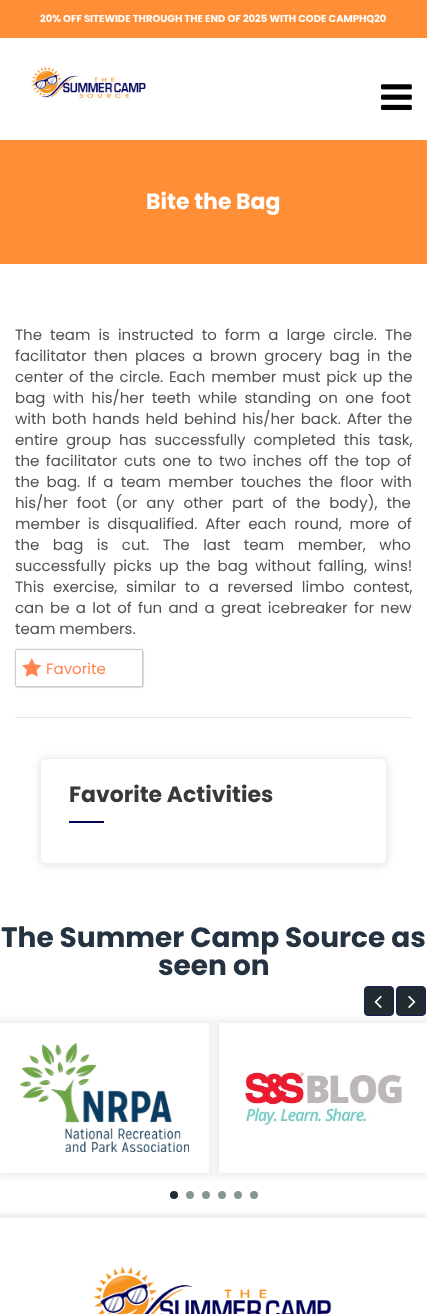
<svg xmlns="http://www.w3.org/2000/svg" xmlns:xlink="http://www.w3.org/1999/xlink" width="427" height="1314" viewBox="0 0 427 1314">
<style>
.cls-1{font:bold 10px Poppins;fill:#ffffff}
.cls-2{font:bold 22px Poppins;fill:#ffffff}
.cls-3{font:15px Poppins;fill:#515151}
.cls-4{font:15px Poppins;fill:#ff8450}
.cls-5{font:bold 22px Poppins;fill:#393939}
.cls-6{font:bold 28px Poppins;fill:#253242}
</style>
<defs>
<clipPath id="clip1"><path d="M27 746H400V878H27ZM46 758H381C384.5 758 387 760.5 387 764V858C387 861.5 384.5 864 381 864H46C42.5 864 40 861.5 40 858V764C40 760.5 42.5 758 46 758Z" clip-rule="evenodd"/></clipPath>
<clipPath id="clip2"><path d="M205 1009H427V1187H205ZM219 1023H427V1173H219Z" clip-rule="evenodd"/></clipPath>
<clipPath id="clip3"><path d="M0 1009H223V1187H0ZM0 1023H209V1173H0Z" clip-rule="evenodd"/></clipPath>
</defs>
<rect width="100%" height="100%" fill="#ffffff"/>
<rect fill="#ff8e36" x="0" y="0" width="427" height="38"/>
<image xlink:href="image0.png" x="31" y="66" width="115" height="33"/>
<image xlink:href="image1.png" x="381" y="84" width="31" height="26"/>
<rect fill="#ff8e36" x="0" y="140" width="427" height="124"/>
<rect fill="#000000" fill-opacity="0.1" filter="blur(0.5px)" x="16" y="650" width="128" height="38" rx="2"/>
<rect fill="#000000" fill-opacity="0.1" filter="blur(1px)" x="15" y="649" width="128" height="38" rx="2"/>
<rect fill="#ffffff" stroke="#cccccc" x="15.5" y="649.5" width="127" height="37" rx="1.5"/>
<image xlink:href="image2.png" x="22" y="658" width="20" height="19"/>
<rect fill="#e6e6e6" x="15" y="717" width="397" height="1"/>
<g clip-path="url(#clip1)">
<rect fill="#64646f" fill-opacity="0.2" filter="blur(4px)" x="40" y="759" width="347" height="106" rx="6"/>
</g>
<rect fill="none" stroke="#eeeff5" x="40.5" y="758.5" width="346" height="105" rx="5.5"/>
<rect fill="#000558" x="69" y="821" width="35" height="2"/>
<g clip-path="url(#clip2)">
<rect fill="#eeeeee" fill-opacity="0.93" filter="blur(3px)" x="215" y="1019" width="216" height="158"/>
</g>
<rect fill="#222b30" stroke="#161e54" x="364.5" y="986.5" width="29" height="29" rx="3.5"/>
<image xlink:href="image3.png" x="374" y="995" width="8" height="13"/>
<rect fill="#222b30" stroke="#161e54" x="396.5" y="986.5" width="29" height="29" rx="3.5"/>
<image xlink:href="image4.png" x="408" y="995" width="8" height="13"/>
<g clip-path="url(#clip3)">
<rect fill="#eeeeee" fill-opacity="0.93" filter="blur(3px)" x="-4" y="1019" width="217" height="158"/>
</g>
<image xlink:href="image5.png" x="20" y="1043" width="169" height="109"/>
<image xlink:href="image6.png" x="244" y="1072" width="158" height="55"/>
<circle fill="#222b30" cx="174" cy="1195" r="4"/>
<circle fill="#869791" cx="190" cy="1195" r="4"/>
<circle fill="#869791" cx="206" cy="1195" r="4"/>
<circle fill="#869791" cx="222" cy="1195" r="4"/>
<circle fill="#869791" cx="238" cy="1195" r="4"/>
<circle fill="#869791" cx="254" cy="1195" r="4"/>
<rect fill="#eeeeee" filter="blur(2.5px)" x="-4" y="1214" width="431" height="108"/>
<rect fill="#ffffff" x="0" y="1218" width="427" height="96"/>
<image xlink:href="image7.png" x="93" y="1266" width="239" height="48"/>
<text class="cls-1" x="40" y="22">20% OFF SITEWIDE THROUGH THE END OF 2025 WITH CODE CAMPHQ20</text>
<text class="cls-2" x="146" y="209">Bite the Bag</text>
<text class="cls-3"><tspan x="15" y="340" word-spacing="4">The team is instructed to form a large circle. The</tspan><tspan x="15" y="361" word-spacing="3.25">facilitator then places a brown grocery bag in the</tspan><tspan x="15" y="382" word-spacing="1.75">center of the circle. Each member must pick up the</tspan><tspan x="15" y="403" word-spacing="3.5">bag with his/her teeth while standing on one foot</tspan><tspan x="15" y="424" word-spacing="1.75">with both hands held behind his/her back. After the</tspan><tspan x="15" y="445" word-spacing="4">entire group has successfully completed this task,</tspan><tspan x="15" y="466" word-spacing="2.5">the facilitator cuts one to two inches off the top of</tspan><tspan x="15" y="487" word-spacing="3.25">the bag. If a team member touches the floor with</tspan><tspan x="15" y="508" word-spacing="5">his/her foot (or any other part of the body), the</tspan><tspan x="15" y="529" word-spacing="3.75">member is disqualified. After each round, more of</tspan><tspan x="15" y="550" word-spacing="9.5">the bag is cut. The last team member, who</tspan><tspan x="15" y="571" word-spacing="3.25">successfully picks up the bag without falling, wins!</tspan><tspan x="15" y="592" word-spacing="4.75">This exercise, similar to a reversed limbo contest,</tspan><tspan x="15" y="613" word-spacing="2.25">can be a lot of fun and a great icebreaker for new</tspan><tspan x="15" y="634">team members.</tspan></text>
<text class="cls-4" x="46" y="674">Favorite</text>
<text class="cls-5" x="69" y="802">Favorite Activities</text>
<text class="cls-6" x="1" y="947">The Summer Camp Source as</text>
<text class="cls-6" x="158" y="975">seen on</text>
</svg>
